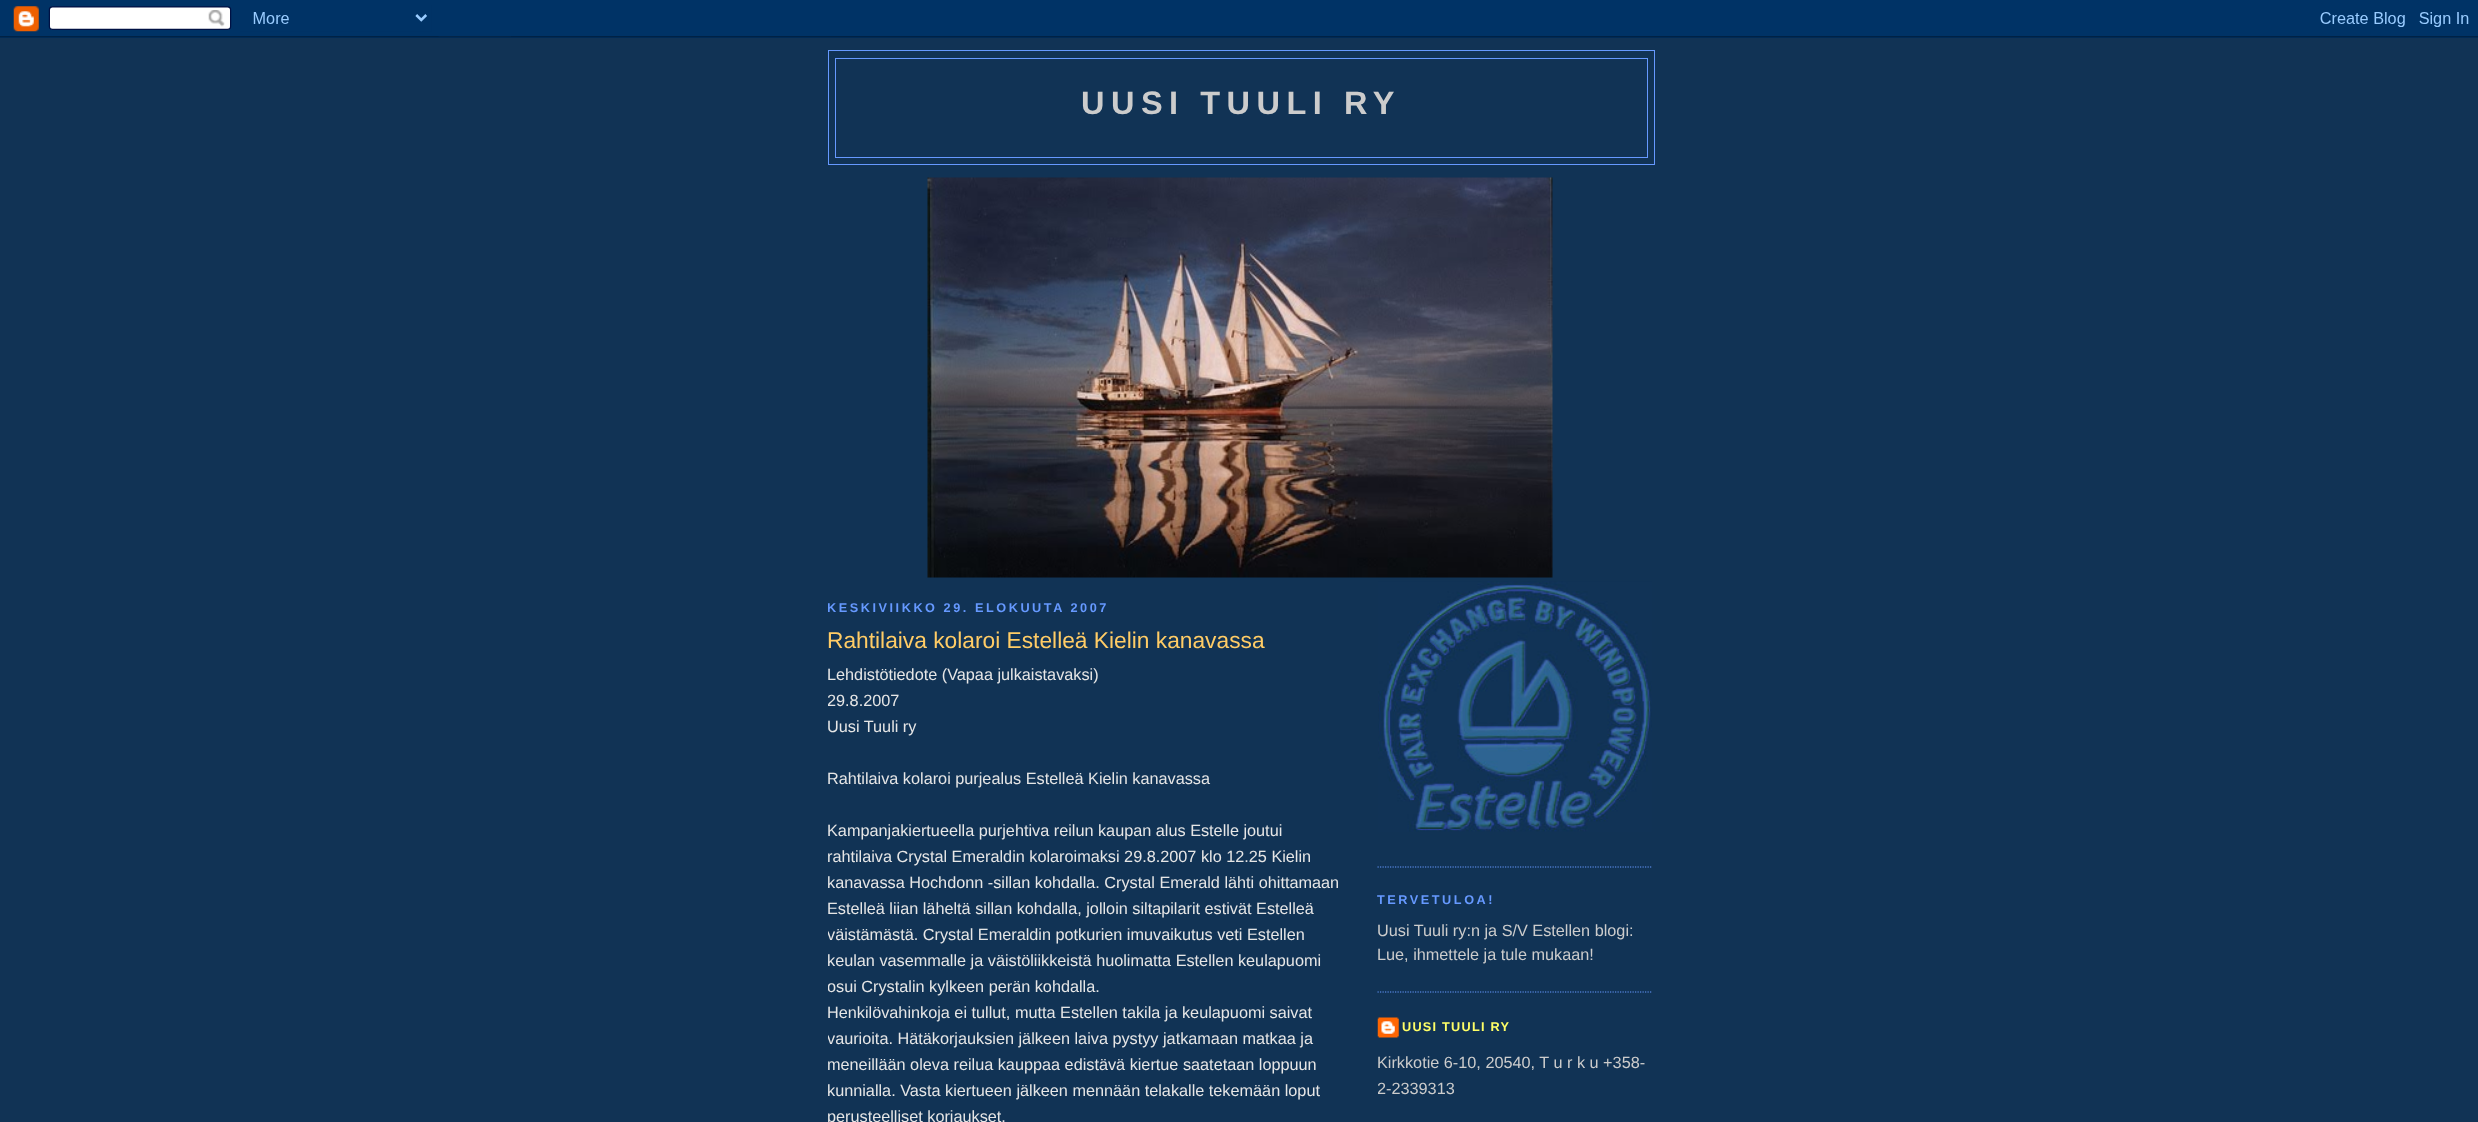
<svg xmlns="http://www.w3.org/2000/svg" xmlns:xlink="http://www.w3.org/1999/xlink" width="2478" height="1122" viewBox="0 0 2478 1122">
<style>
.cls-1{font:bold 32.5px Liberation Sans;letter-spacing:6.5px;fill:#cccccc}
.cls-2{font:bold 12.7px Liberation Sans;letter-spacing:2.55px;fill:#6699ff}
.cls-3{font:22.75px Liberation Sans;fill:#ffcc66}
.cls-4{font:16.25px Liberation Sans;fill:#e6e6e6}
.cls-5{font:16.25px Liberation Sans;fill:#cccccc}
.cls-6{font:bold 12.7px Liberation Sans;letter-spacing:1.25px;fill:#ffff66}
</style>
<defs>
<clipPath id="clip1"><rect x="828" y="581" width="512" height="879"/></clipPath>
<clipPath id="clip2"><rect x="1378" y="581" width="275" height="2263"/></clipPath>
</defs>
<rect width="100%" height="100%" fill="#113355"/>
<image xlink:href="image0.png" x="0" y="0" width="2478" height="38"/>
<rect fill="none" stroke="#6699ff" x="828.5" y="50.5" width="826" height="114"/>
<rect fill="none" stroke="#6699ff" x="835.5" y="58.5" width="812" height="99"/>
<image xlink:href="image1.png" x="927" y="177" width="626" height="401"/>
<path fill="none" stroke="#6699ff" stroke-width="1.2" stroke-dasharray="1.25 1.25" d="M1377.5 867H1652.5"/>
<image xlink:href="image2.png" x="1378" y="581" width="274" height="251"/>
<path fill="none" stroke="#6699ff" stroke-width="1.2" stroke-dasharray="1.25 1.25" d="M1377.5 992H1652.5"/>
<image xlink:href="image3.png" x="1377" y="1017" width="22" height="21"/>
<text class="cls-1" x="1081" y="114">UUSI TUULI RY</text>
<g clip-path="url(#clip1)">
<text class="cls-2" x="827" y="612">KESKIVIIKKO 29. ELOKUUTA 2007</text>
</g>
<text class="cls-3" x="827" y="648">Rahtilaiva kolaroi Estelleä Kielin kanavassa</text>
<text class="cls-4" x="827" y="680">Lehdistötiedote (Vapaa julkaistavaksi)</text>
<g clip-path="url(#clip1)">
<text class="cls-4" x="827" y="706">29.8.2007</text>
</g>
<text class="cls-4" x="827" y="732">Uusi Tuuli ry</text>
<text class="cls-4" x="827" y="784">Rahtilaiva kolaroi purjealus Estelleä Kielin kanavassa</text>
<text class="cls-4"><tspan x="827" y="836">Kampanjakiertueella purjehtiva reilun kaupan alus Estelle joutui</tspan><tspan x="827" y="862">rahtilaiva Crystal Emeraldin kolaroimaksi 29.8.2007 klo 12.25 Kielin</tspan><tspan x="827" y="888">kanavassa Hochdonn -sillan kohdalla. Crystal Emerald lähti ohittamaan</tspan><tspan x="827" y="914">Estelleä liian läheltä sillan kohdalla, jolloin siltapilarit estivät Estelleä</tspan></text>
<g clip-path="url(#clip1)">
<text class="cls-4" x="827" y="940">väistämästä. Crystal Emeraldin potkurien imuvaikutus veti Estellen</text>
</g>
<text class="cls-4" x="827" y="966">keulan vasemmalle ja väistöliikkeistä huolimatta Estellen keulapuomi</text>
<g clip-path="url(#clip1)">
<text class="cls-4" x="827" y="992">osui Crystalin kylkeen perän kohdalla.</text>
</g>
<text class="cls-4" x="827" y="1018">Henkilövahinkoja ei tullut, mutta Estellen takila ja keulapuomi saivat</text>
<g clip-path="url(#clip1)">
<text class="cls-4" x="827" y="1044">vaurioita. Hätäkorjauksien jälkeen laiva pystyy jatkamaan matkaa ja</text>
</g>
<text class="cls-4"><tspan x="827" y="1070">meneillään oleva reilua kauppaa edistävä kiertue saatetaan loppuun</tspan><tspan x="827" y="1096">kunnialla. Vasta kiertueen jälkeen mennään telakalle tekemään loput</tspan><tspan x="827" y="1122">perusteelliset korjaukset.</tspan></text>
<text class="cls-2" x="1377" y="904">TERVETULOA!</text>
<text class="cls-5"><tspan x="1377" y="936">Uusi Tuuli ry:n ja S/V Estellen blogi:</tspan><tspan x="1377" y="960">Lue, ihmettele ja tule mukaan!</tspan></text>
<text class="cls-6" x="1402" y="1031">UUSI TUULI RY</text>
<text class="cls-5" x="1377" y="1068">Kirkkotie 6-10, 20540, T u r k u +358-</text>
<g clip-path="url(#clip2)">
<text class="cls-5" x="1377" y="1094">2-2339313</text>
</g>
</svg>
